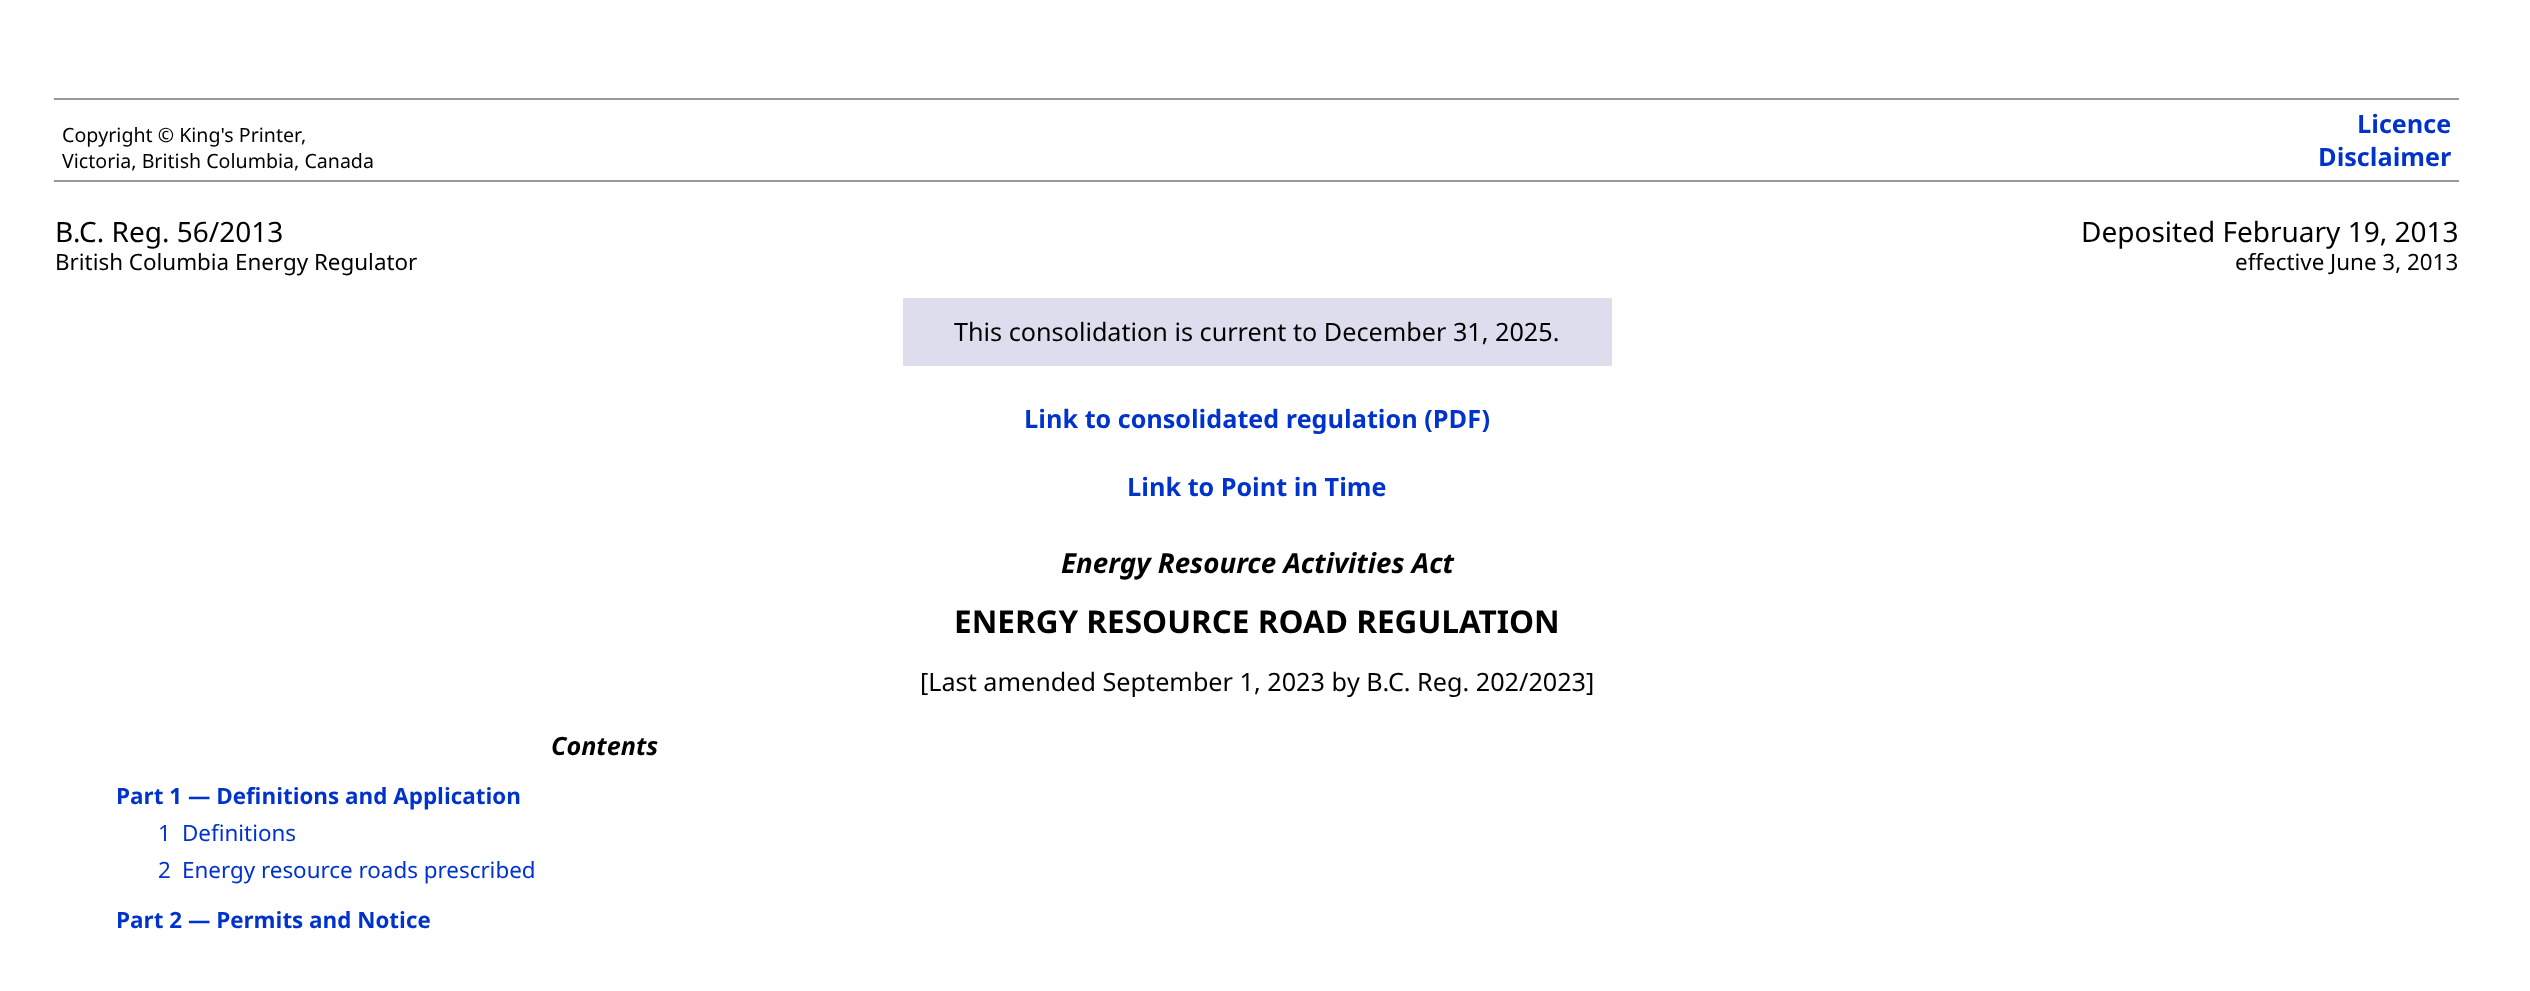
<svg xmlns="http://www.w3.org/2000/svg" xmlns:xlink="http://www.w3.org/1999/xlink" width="2530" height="991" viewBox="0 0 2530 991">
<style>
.cls-1{font:19.6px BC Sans;fill:#000000}
.cls-2{font:bold 25.2px BC Sans;fill:#0033cc}
.cls-3{font:28px BC Sans;fill:#000000}
.cls-4{font:22.4px BC Sans;fill:#000000}
.cls-5{font:25.2px BC Sans;fill:#000000}
.cls-6{font:italic bold 27.75px BC Sans;fill:#000000}
.cls-7{font:bold 31.5px BC Sans;fill:#000000}
.cls-8{font:italic bold 25.2px BC Sans;fill:#000000}
.cls-9{font:bold 22.4px BC Sans;fill:#0033cc}
.cls-10{font:22.4px BC Sans;fill:#0033cc}
</style>
<rect width="100%" height="100%" fill="#ffffff"/>
<rect fill="#999999" x="54" y="98" width="2405" height="2"/>
<rect fill="#999999" x="54" y="180" width="2405" height="2"/>
<rect fill="#dedded" x="903" y="298" width="709" height="68"/>
<text class="cls-1"><tspan x="62" y="142">Copyright © King's Printer,</tspan><tspan x="62" y="168">Victoria, British Columbia, Canada</tspan></text>
<text class="cls-2" x="2357" y="133">Licence</text>
<text class="cls-2" x="2318" y="166">Disclaimer</text>
<text class="cls-3" x="55" y="242">B.C. Reg. 56/2013</text>
<text class="cls-4" x="55" y="270">British Columbia Energy Regulator</text>
<text class="cls-3" x="2081" y="242">Deposited February 19, 2013</text>
<text class="cls-4" x="2235" y="270">effective June 3, 2013</text>
<text class="cls-5" x="954" y="341">This consolidation is current to December 31, 2025.</text>
<text class="cls-2" x="1024" y="428">Link to consolidated regulation (PDF)</text>
<text class="cls-2" x="1127" y="496">Link to Point in Time</text>
<text class="cls-6" x="1061" y="573">Energy Resource Activities Act</text>
<text class="cls-7" x="954" y="633">ENERGY RESOURCE ROAD REGULATION</text>
<text class="cls-5" x="920" y="691">[Last amended September 1, 2023 by B.C. Reg. 202/2023]</text>
<text class="cls-8" x="551" y="755">Contents</text>
<text class="cls-9" x="116" y="804">Part 1 — Definitions and Application</text>
<text class="cls-10" x="158" y="841">1</text>
<text class="cls-10" x="182" y="841">Definitions</text>
<text class="cls-10" x="158" y="878">2</text>
<text class="cls-10" x="182" y="878">Energy resource roads prescribed</text>
<text class="cls-9" x="116" y="928">Part 2 — Permits and Notice</text>
</svg>
